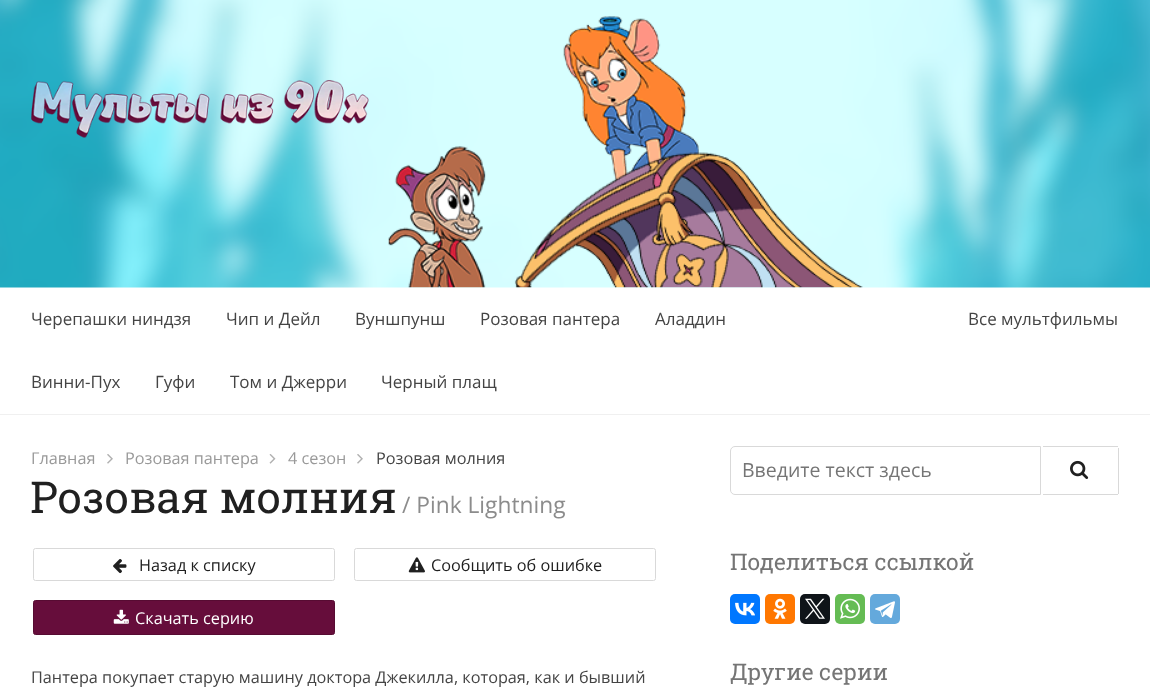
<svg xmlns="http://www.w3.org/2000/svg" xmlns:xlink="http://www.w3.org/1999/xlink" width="1150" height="694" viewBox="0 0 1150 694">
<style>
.cls-1{font:17px Open Sans;fill:#444444}
.cls-2{font:16.25px Open Sans;fill:#999999}
.cls-3{font:16.25px Open Sans;fill:#444444}
.cls-4{font:43.9px Roboto Slab;fill:#202020}
.cls-5{font:22.75px Open Sans;fill:#8c8c8c}
.cls-6{font:16.25px Open Sans;fill:#202020}
.cls-7{font:16.25px Open Sans;fill:#ffffff}
.cls-8{font:19.5px Open Sans;fill:#757575}
.cls-9{font:22.75px Roboto Slab;fill:#757575}
</style>
<rect width="100%" height="100%" fill="#ffffff"/>
<image xlink:href="image0.png" x="0" y="0" width="1150" height="288"/>
<image xlink:href="image1.png" x="31" y="80" width="338" height="58"/>
<image xlink:href="image2.png" x="388" y="16" width="475" height="272"/>
<rect fill="#f0f0f0" x="0" y="414" width="1150" height="1"/>
<image xlink:href="image3.png" x="107" y="454" width="6" height="10"/>
<image xlink:href="image4.png" x="269" y="454" width="7" height="10"/>
<image xlink:href="image3.png" x="357" y="454" width="6" height="10"/>
<rect fill="none" stroke="#d9d9d9" x="33.5" y="548.5" width="301" height="32" rx="2"/>
<image xlink:href="image5.png" x="113" y="559" width="14" height="15"/>
<rect fill="none" stroke="#d9d9d9" x="354.5" y="548.5" width="301" height="32" rx="2"/>
<image xlink:href="image6.png" x="408" y="557" width="17" height="16"/>
<rect fill="#660d3b" stroke="#570b32" x="33.5" y="600.5" width="301" height="34" rx="2"/>
<image xlink:href="image7.png" x="113" y="609" width="16" height="15"/>
<path fill="none" stroke="#d9d9d9" d="M735 446.5H1040.5V494.5H735C732.5 494.5 730.5 492.5 730.5 490V451C730.5 448.5 732.5 446.5 735 446.5Z"/>
<rect fill="#d9d9d9" x="1043" y="446" width="75" height="1"/>
<rect fill="#d9d9d9" x="1118" y="448" width="1" height="46"/>
<rect fill="#d9d9d9" x="1043" y="494" width="75" height="1"/>
<image xlink:href="image8.png" x="1070" y="460" width="19" height="19"/>
<rect fill="#0077ff" x="730" y="594" width="30" height="30" rx="5"/>
<image xlink:href="image9.png" x="735" y="602" width="20" height="14"/>
<rect fill="#ff7700" x="765" y="594" width="30" height="30" rx="5"/>
<image xlink:href="image10.png" x="773" y="598" width="14" height="21"/>
<rect fill="#0f1419" x="800" y="594" width="30" height="30" rx="5"/>
<image xlink:href="image11.png" x="805" y="598" width="20" height="21"/>
<rect fill="#65bc54" x="835" y="594" width="30" height="30" rx="5"/>
<image xlink:href="image12.png" x="840" y="598" width="20" height="21"/>
<rect fill="#64a9dc" x="870" y="594" width="30" height="30" rx="5"/>
<image xlink:href="image13.png" x="875" y="601" width="20" height="17"/>
<text class="cls-1" x="31" y="325">Черепашки ниндзя</text>
<text class="cls-1" x="226" y="325">Чип и Дейл</text>
<text class="cls-1" x="355" y="325">Вуншпунш</text>
<text class="cls-1" x="480" y="325">Розовая пантера</text>
<text class="cls-1" x="655" y="325">Аладдин</text>
<text class="cls-1" x="31" y="388">Винни-Пух</text>
<text class="cls-1" x="155" y="388">Гуфи</text>
<text class="cls-1" x="230" y="388">Том и Джерри</text>
<text class="cls-1" x="381" y="388">Черный плащ</text>
<text class="cls-1" x="968" y="325">Все мультфильмы</text>
<text class="cls-2" x="31" y="464">Главная</text>
<text class="cls-2" x="125" y="464">Розовая пантера</text>
<text class="cls-2" x="288" y="464">4 сезон</text>
<text class="cls-3" x="376" y="464">Розовая молния</text>
<text class="cls-4" x="30" y="513">Розовая молния</text>
<text class="cls-5" x="402" y="513">/ Pink Lightning</text>
<text class="cls-6" x="139" y="571">Назад к списку</text>
<text class="cls-6" x="431" y="571">Сообщить об ошибке</text>
<text class="cls-7" x="135" y="624">Скачать серию</text>
<text class="cls-3" x="31" y="683">Пантера покупает старую машину доктора Джекилла, которая, как и бывший</text>
<text class="cls-8" x="742" y="477">Введите текст здесь</text>
<text class="cls-9" x="730" y="570">Поделиться ссылкой</text>
<text class="cls-9" x="730" y="680">Другие серии</text>
</svg>
